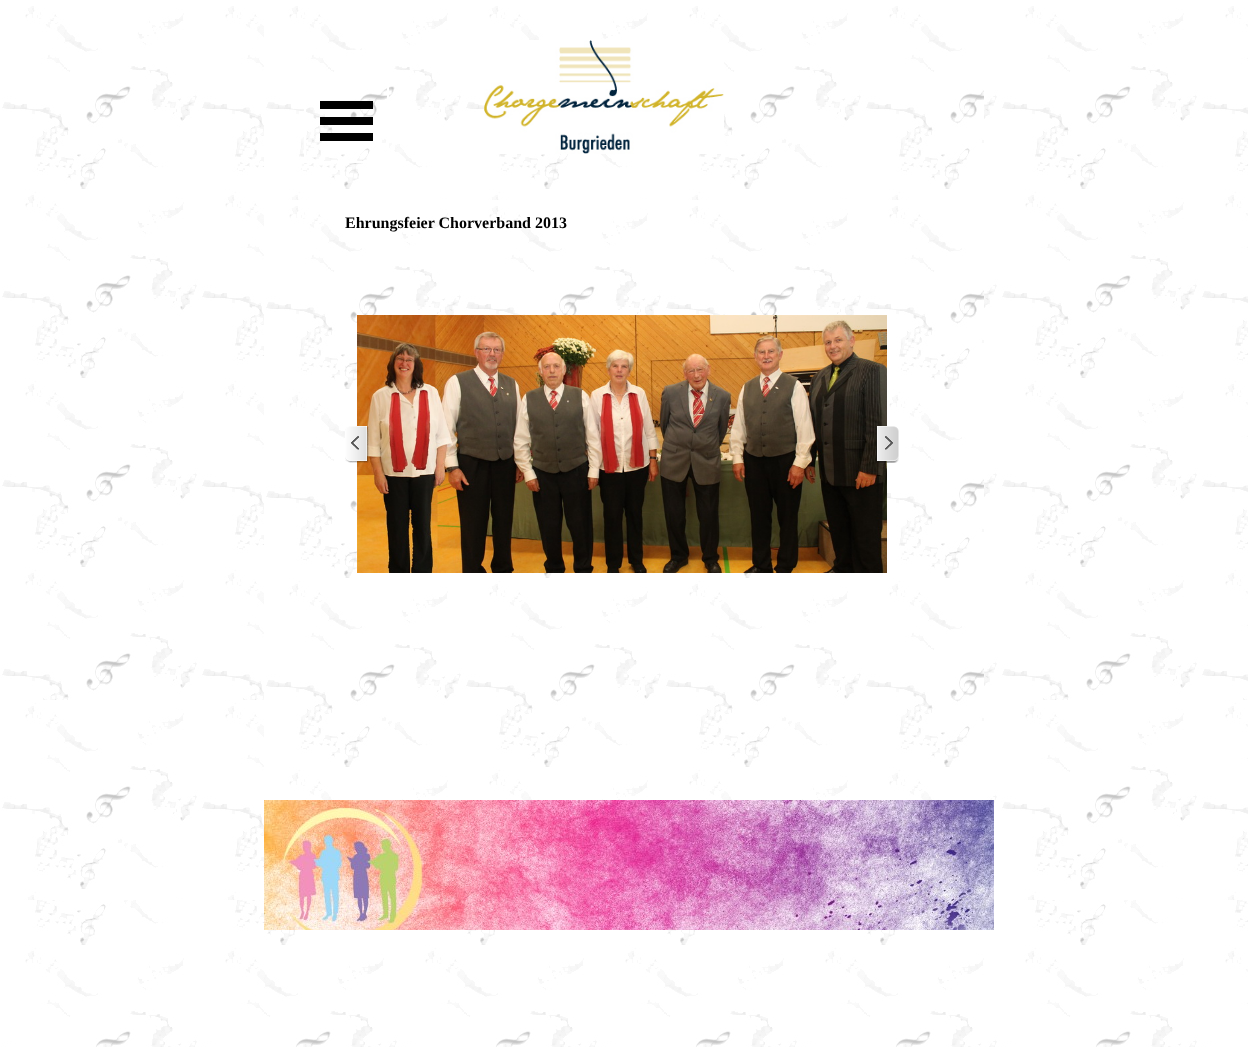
<svg xmlns="http://www.w3.org/2000/svg" xmlns:xlink="http://www.w3.org/1999/xlink" width="1248" height="1047" viewBox="0 0 1248 1047">
<style>
.cls-1{font:bold 16px Liberation Serif;fill:#000000}
</style>
<rect width="100%" height="100%" fill="#ffffff"/>
<image xlink:href="image0.png" x="0" y="330" width="1248" height="717"/>
<image xlink:href="image1.png" x="2" y="6" width="1246" height="324"/>
<image xlink:href="image9.png" x="0" y="700" width="1248" height="200"/>
<rect fill="#ffffff" x="264" y="6" width="720" height="794"/>
<image xlink:href="image2.png" x="266" y="6" width="718" height="194"/>
<rect fill="none" stroke="#ffffff" stroke-width="2" x="305" y="51" width="83" height="111"/>
<rect fill="#000000" x="320" y="101" width="53" height="8"/>
<rect fill="#000000" x="320" y="117" width="53" height="8"/>
<rect fill="#000000" x="320" y="133" width="53" height="8"/>
<image xlink:href="image3.png" x="484" y="40" width="240" height="114"/>
<image xlink:href="image4.png" x="266" y="206" width="718" height="594"/>
<image xlink:href="image5.png" x="357" y="315" width="530" height="258"/>
<image xlink:href="image6.png" x="345" y="426" width="24" height="37"/>
<image xlink:href="image7.png" x="876" y="426" width="23" height="37"/>
<image xlink:href="image8.png" x="264" y="800" width="730" height="130"/>
<text class="cls-1" x="345" y="228">Ehrungsfeier Chorverband 2013</text>
</svg>
